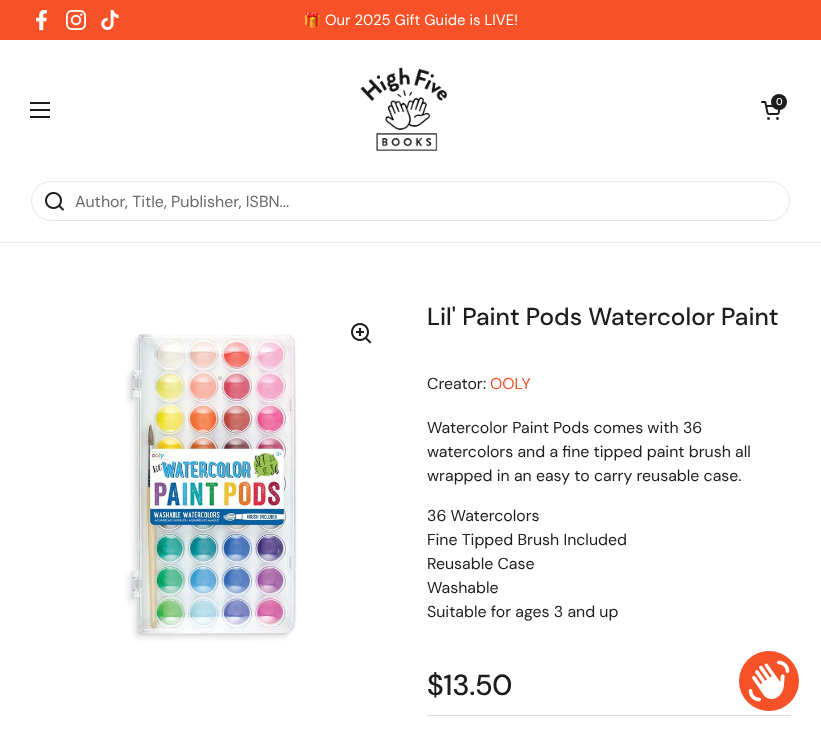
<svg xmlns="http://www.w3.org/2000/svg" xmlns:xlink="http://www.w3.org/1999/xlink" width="821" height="732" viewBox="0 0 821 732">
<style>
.cls-1{font:14.9px Noto Color Emoji;fill:#ffffff}
.cls-2{font:14.9px DM Sans;fill:#ffffff}
.cls-3{font:500 10px 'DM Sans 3';fill:#ffffff}
.cls-4{font:16px DM Sans;fill:#6a6a6a}
.cls-5{font:500 24.5px DM Sans;fill:#1d1d1d}
.cls-6{font:15.9px DM Sans;fill:#1d1d1d}
.cls-7{font:15.9px DM Sans;fill:#f75127}
.cls-8{font:500 29px 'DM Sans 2';fill:#1d1d1d}
</style>
<rect width="100%" height="100%" fill="#ffffff"/>
<rect fill="#f75127" x="0" y="0" width="821" height="40"/>
<image xlink:href="image0.png" x="36" y="10" width="11" height="21"/>
<image xlink:href="image1.png" x="66" y="10" width="20" height="20"/>
<image xlink:href="image2.png" x="101" y="10" width="18" height="20"/>
<rect fill="#1d1d1d" x="30" y="102" width="20" height="2"/>
<rect fill="#1d1d1d" x="30" y="109" width="20" height="2"/>
<rect fill="#1d1d1d" x="30" y="116" width="20" height="2"/>
<image xlink:href="image3.png" x="360" y="67" width="88" height="84"/>
<image xlink:href="image4.png" x="761" y="101" width="20" height="19"/>
<circle fill="#1d1d1d" cx="779" cy="102" r="8"/>
<rect fill="#e8e8e8" x="0" y="242" width="821" height="1"/>
<rect fill="none" stroke="#e8e8e8" x="31.5" y="181.5" width="758" height="39" rx="19.5"/>
<image xlink:href="image5.png" x="45" y="192" width="19" height="19"/>
<image xlink:href="image6.png" x="125" y="334" width="173" height="307"/>
<image xlink:href="image7.png" x="351" y="323" width="21" height="21"/>
<rect fill="#dddddd" x="427" y="715" width="364" height="1"/>
<circle fill="#f75127" cx="769" cy="681" r="30"/>
<image xlink:href="image8.png" x="748" y="660" width="42" height="42"/>
<text class="cls-1" x="303" y="25">🎁</text>
<text class="cls-2" x="325" y="25">Our 2025 Gift Guide is LIVE!</text>
<text class="cls-3" x="776" y="105">0</text>
<text class="cls-4" x="75" y="207">Author, Title, Publisher, ISBN...</text>
<text class="cls-5" x="427" y="325">Lil' Paint Pods Watercolor Paint</text>
<text class="cls-6" x="427" y="389">Creator:</text>
<text class="cls-7" x="490" y="389">OOLY</text>
<text class="cls-6"><tspan x="427" y="433">Watercolor Paint Pods comes with 36</tspan><tspan x="427" y="457">watercolors and a fine tipped paint brush all</tspan><tspan x="427" y="481">wrapped in an easy to carry reusable case.</tspan></text>
<text class="cls-6"><tspan x="427" y="521">36 Watercolors</tspan><tspan x="427" y="545">Fine Tipped Brush Included</tspan><tspan x="427" y="569">Reusable Case</tspan><tspan x="427" y="593">Washable</tspan><tspan x="427" y="617">Suitable for ages 3 and up</tspan></text>
<text class="cls-8" x="427" y="695">$13.50</text>
</svg>
